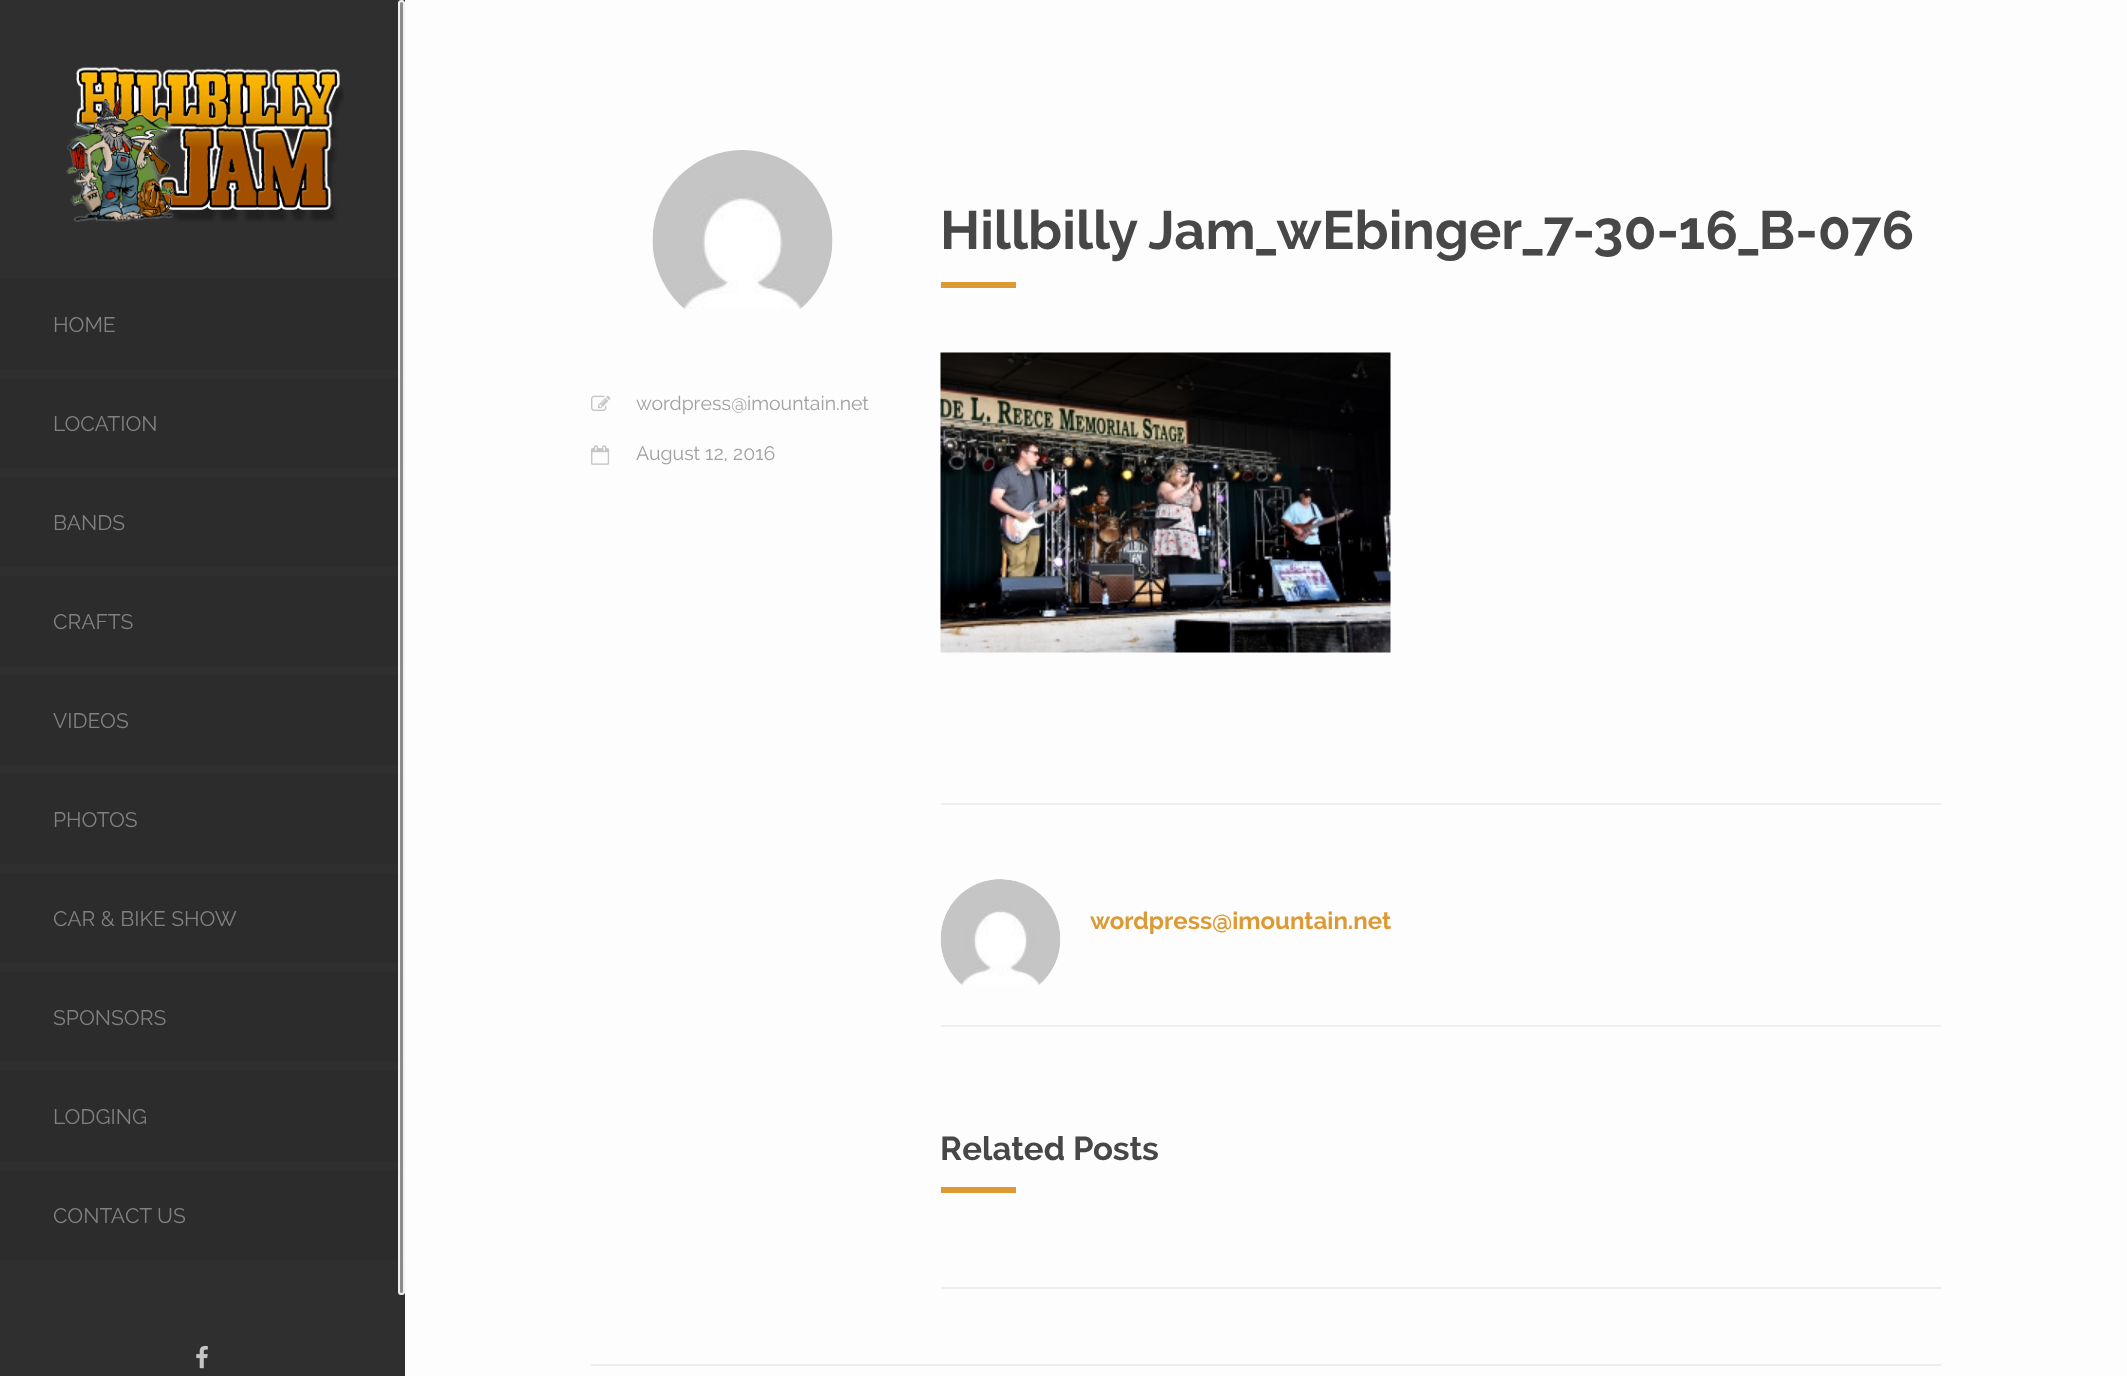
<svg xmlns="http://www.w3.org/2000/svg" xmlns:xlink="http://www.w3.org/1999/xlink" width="2127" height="1376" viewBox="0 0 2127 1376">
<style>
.cls-1{font:21px Raleway;fill:#818181}
.cls-2{font:19.5px Raleway;fill:#a0a0a0}
.cls-3{font:bold 54px Raleway;fill:#474747}
.cls-4{font:bold 24px Raleway;fill:#dd9933}
.cls-5{font:bold 33px Raleway;fill:#474747}
</style>
<rect width="100%" height="100%" fill="#2f2f2f"/>
<image xlink:href="image0.png" x="66" y="66" width="278" height="156"/>
<rect fill="#2c2c2c" x="0" y="279" width="405" height="90"/>
<rect fill="#2c2c2c" x="0" y="378" width="405" height="90"/>
<rect fill="#2c2c2c" x="0" y="477" width="405" height="90"/>
<rect fill="#2c2c2c" x="0" y="576" width="405" height="90"/>
<rect fill="#2c2c2c" x="0" y="675" width="405" height="90"/>
<rect fill="#2c2c2c" x="0" y="774" width="405" height="90"/>
<rect fill="#2c2c2c" x="0" y="873" width="405" height="90"/>
<rect fill="#2c2c2c" x="0" y="972" width="405" height="90"/>
<rect fill="#2c2c2c" x="0" y="1071" width="405" height="90"/>
<rect fill="#2c2c2c" x="0" y="1170" width="405" height="90"/>
<image xlink:href="image1.png" x="196" y="1345" width="12" height="24"/>
<rect fill="#9a9a9a" fill-opacity="0.87" x="398" y="0" width="7" height="1295" rx="3.5"/>
<rect fill="none" stroke="#ffffff" stroke-opacity="0.87" stroke-width="2" x="399" y="1" width="5" height="1293" rx="2.5"/>
<rect fill="#fdfdfd" x="405" y="0" width="1722" height="1376"/>
<rect fill="#ededed" x="591" y="1364" width="1350" height="2"/>
<image xlink:href="image2.png" x="652" y="150" width="181" height="159"/>
<image xlink:href="image3.png" x="591" y="395" width="20" height="16"/>
<image xlink:href="image4.png" x="591" y="445" width="19" height="20"/>
<rect fill="#dd9933" x="941" y="282" width="75" height="6"/>
<image xlink:href="image5.png" x="940" y="352" width="451" height="301"/>
<rect fill="#eeeeee" x="941" y="803" width="1000" height="2"/>
<image xlink:href="image6.png" x="940" y="879" width="121" height="106"/>
<rect fill="#eeeeee" x="941" y="1025" width="1000" height="2"/>
<rect fill="#dd9933" x="941" y="1187" width="75" height="6"/>
<rect fill="#eeeeee" x="941" y="1287" width="1000" height="2"/>
<text class="cls-1" x="53" y="332">HOME</text>
<text class="cls-1" x="53" y="431">LOCATION</text>
<text class="cls-1" x="53" y="530">BANDS</text>
<text class="cls-1" x="53" y="629">CRAFTS</text>
<text class="cls-1" x="53" y="728">VIDEOS</text>
<text class="cls-1" x="53" y="827">PHOTOS</text>
<text class="cls-1" x="53" y="926">CAR &amp; BIKE SHOW</text>
<text class="cls-1" x="53" y="1025">SPONSORS</text>
<text class="cls-1" x="53" y="1124">LODGING</text>
<text class="cls-1" x="53" y="1223">CONTACT US</text>
<text class="cls-2" x="636" y="410">wordpress@imountain.net</text>
<text class="cls-2" x="636" y="460">August 12, 2016</text>
<text class="cls-3" x="940" y="249">Hillbilly Jam_wEbinger_7-30-16_B-076</text>
<text class="cls-4" x="1090" y="929">wordpress@imountain.net</text>
<text class="cls-5" x="940" y="1160">Related Posts</text>
</svg>
